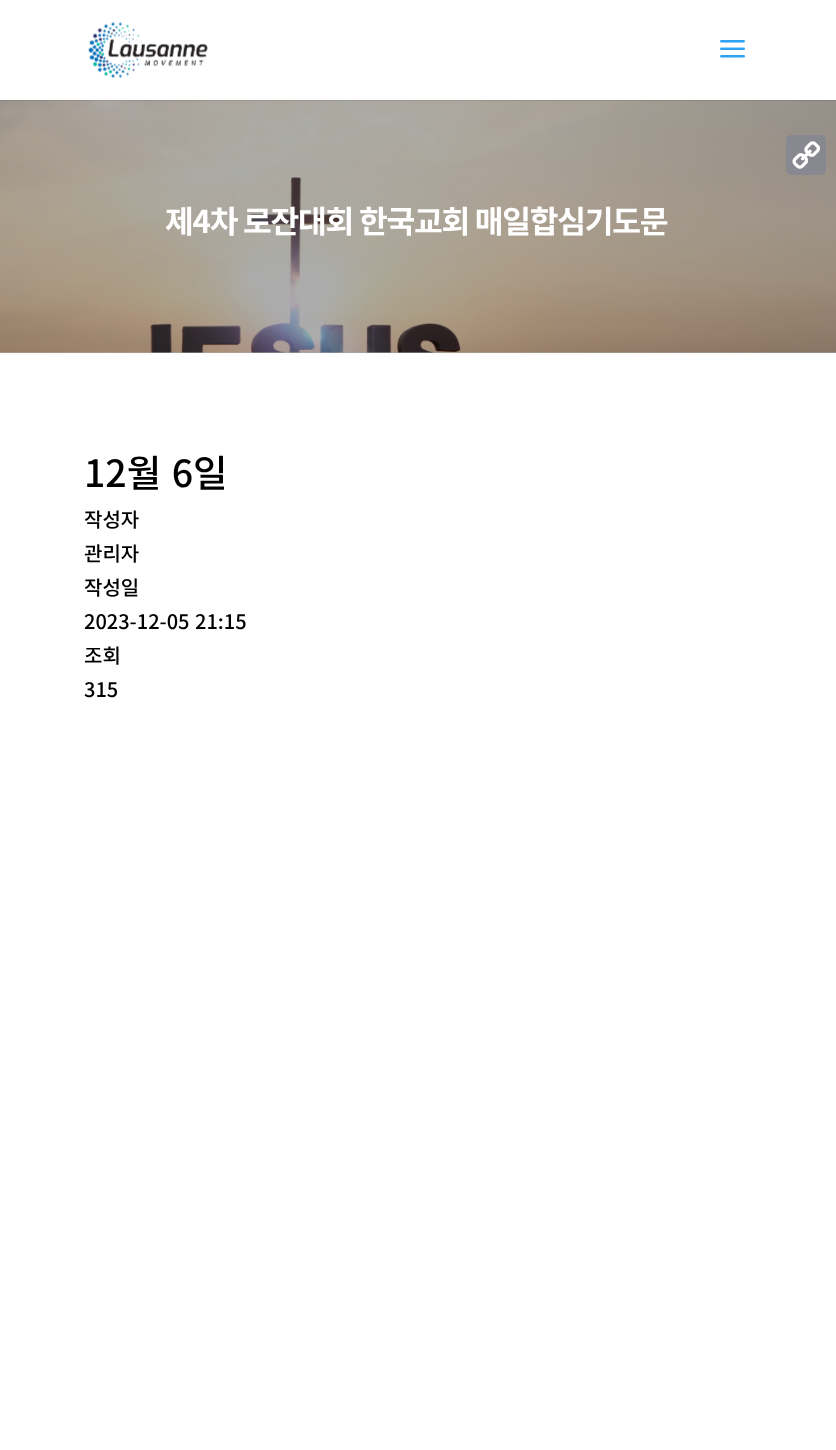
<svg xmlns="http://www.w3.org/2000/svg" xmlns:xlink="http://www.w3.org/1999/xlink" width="836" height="1450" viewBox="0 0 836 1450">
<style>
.cls-1{font:100 31.25px 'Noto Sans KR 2';letter-spacing:-1.25px;fill:#ffffff}
.cls-2{font:100 37.5px Noto Sans KR;fill:#000000}
.cls-3{font:100 20px Noto Sans KR;fill:#000000}
</style>
<rect width="100%" height="100%" fill="#ffffff"/>
<rect fill="#adadad" x="0" y="352" width="836" height="1"/>
<image xlink:href="image3.png" x="0" y="100" width="836" height="253"/>
<rect fill="#888990" x="786" y="135" width="40" height="40" rx="5"/>
<image xlink:href="image0.png" x="792" y="141" width="28" height="28"/>
<rect fill="#000000" fill-opacity="0.1" x="0" y="100" width="836" height="1"/>
<image xlink:href="image1.png" x="88" y="22" width="120" height="56"/>
<image xlink:href="image2.png" x="720" y="40" width="25" height="18"/>
<text class="cls-1" x="165" y="233">제4차 로잔대회 한국교회 매일합심기도문</text>
<text class="cls-2" x="84" y="487" word-spacing="2">12월 6일</text>
<text class="cls-3"><tspan x="84" y="527">작성자</tspan><tspan x="84" y="561">관리자</tspan><tspan x="84" y="595">작성일</tspan><tspan x="84" y="629" word-spacing="1">2023-12-05 21:15</tspan><tspan x="84" y="663">조회</tspan><tspan x="84" y="697">315</tspan></text>
</svg>
